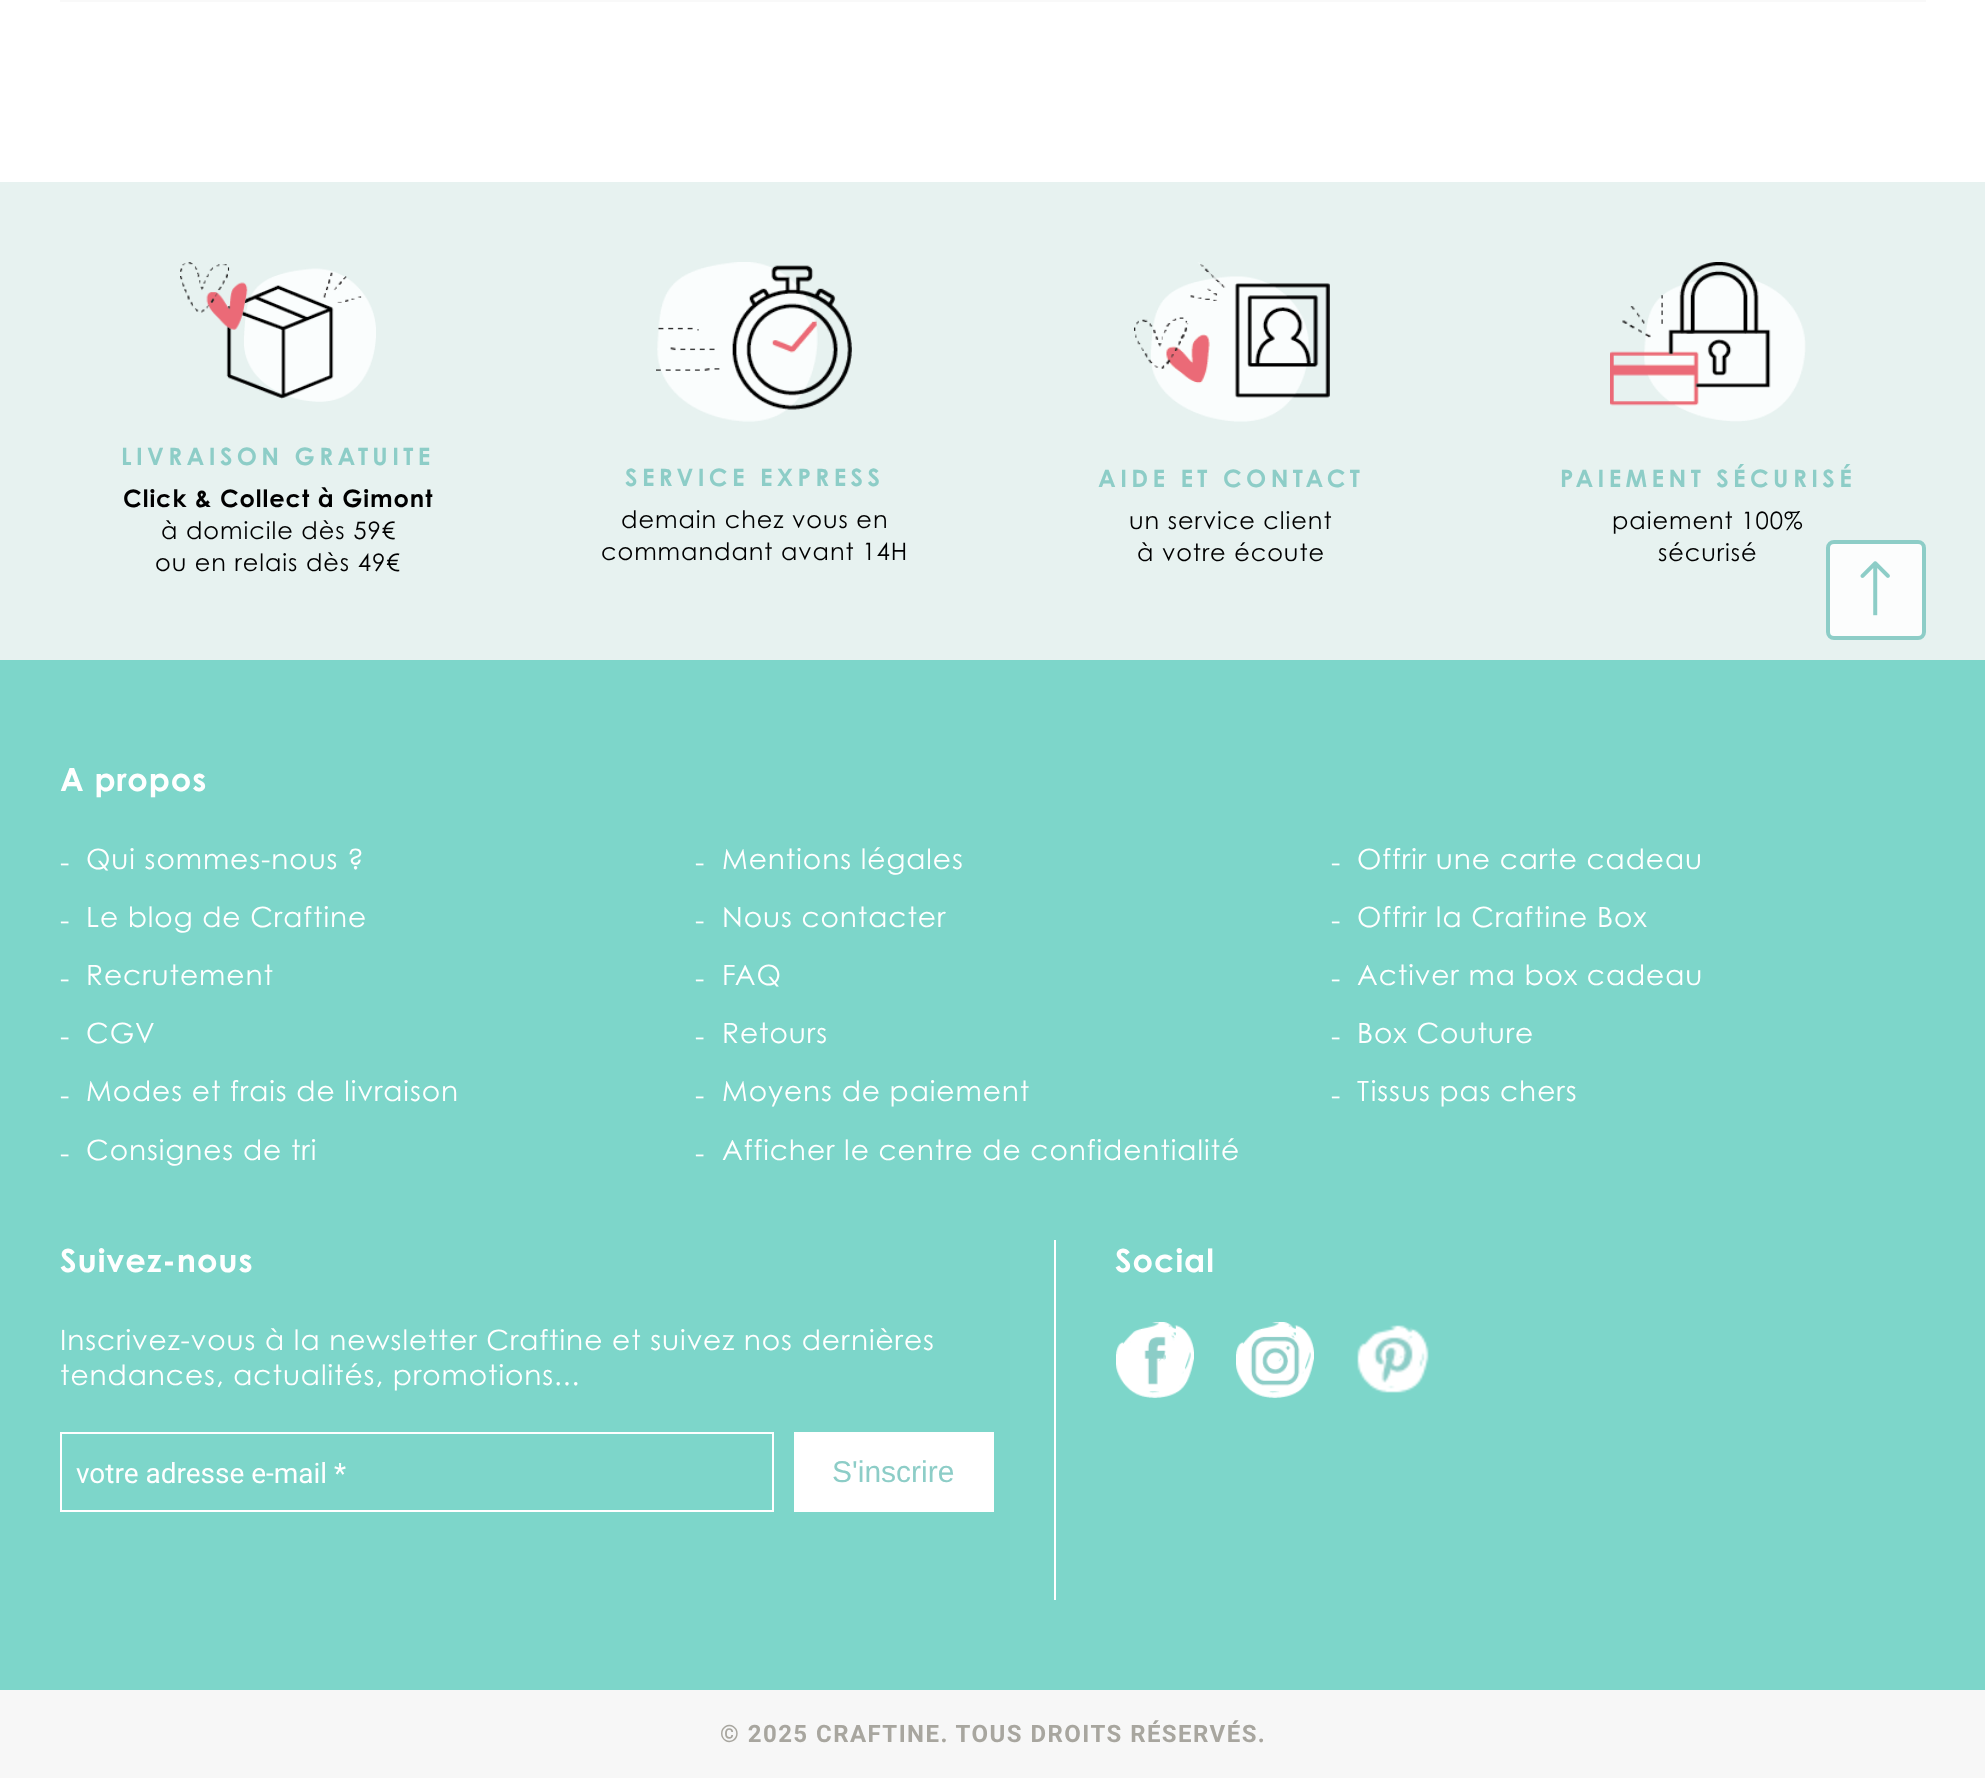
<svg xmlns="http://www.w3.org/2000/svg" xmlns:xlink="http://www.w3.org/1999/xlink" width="1985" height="1778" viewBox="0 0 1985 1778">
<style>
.cls-1{font:bold 24px Century Gothic;letter-spacing:4.4px;fill:#8dcdc7}
.cls-2{font:bold 24px Century Gothic;letter-spacing:0.95px;fill:#000000}
.cls-3{font:24px Century Gothic;letter-spacing:0.95px;fill:#000000}
.cls-4{font:bold 32px Century Gothic;letter-spacing:0.95px;fill:#ffffff}
.cls-5{font:28px Century Gothic;letter-spacing:0.95px;fill:#ffffff}
.cls-6{font:28px Roboto;fill:#ffffff}
.cls-7{font:30px Liberation Sans;fill:#8dcdc7}
.cls-8{font:bold 24px Roboto;letter-spacing:1.45px;fill:#a8a69f}
</style>
<rect width="100%" height="100%" fill="#ffffff"/>
<rect fill="#f9f9f9" x="60" y="0" width="1866" height="2"/>
<rect fill="#e7f2f0" x="0" y="182" width="1985" height="478"/>
<image xlink:href="image0.png" x="180" y="262" width="196" height="140"/>
<image xlink:href="image1.png" x="656" y="262" width="196" height="160"/>
<image xlink:href="image2.png" x="1134" y="262" width="196" height="160"/>
<image xlink:href="image3.png" x="1610" y="262" width="196" height="160"/>
<rect fill="#7dd6ca" x="0" y="660" width="1985" height="1030"/>
<rect fill="#fcfdfd" stroke="#8dcdc7" stroke-width="4" x="1828" y="542" width="96" height="96" rx="6"/>
<image xlink:href="image4.png" x="1860" y="561" width="30" height="55"/>
<rect fill="none" stroke="#ffffff" stroke-width="2" x="61" y="1433" width="712" height="78"/>
<rect fill="#ffffff" x="794" y="1432" width="200" height="80"/>
<rect fill="#ffffff" x="1054" y="1240" width="2" height="360"/>
<image xlink:href="image5.png" x="1116" y="1322" width="78" height="76"/>
<image xlink:href="image6.png" x="1236" y="1322" width="78" height="76"/>
<image xlink:href="image7.png" x="1357" y="1325" width="72" height="68"/>
<rect fill="#f7f7f7" x="0" y="1690" width="1985" height="88"/>
<text class="cls-1" x="121" y="465">LIVRAISON GRATUITE</text>
<text class="cls-2" x="123" y="507">Click &amp; Collect à Gimont</text>
<text class="cls-3" x="161" y="539">à domicile dès 59€</text>
<text class="cls-3" x="155" y="571">ou en relais dès 49€</text>
<text class="cls-1" x="625" y="486">SERVICE EXPRESS</text>
<text class="cls-3" x="621" y="528">demain chez vous en</text>
<text class="cls-3" x="601" y="560">commandant avant 14H</text>
<text class="cls-1" x="1098" y="487">AIDE ET CONTACT</text>
<text class="cls-3" x="1129" y="529">un service client</text>
<text class="cls-3" x="1137" y="561">à votre écoute</text>
<text class="cls-1" x="1560" y="487">PAIEMENT SÉCURISÉ</text>
<text class="cls-3" x="1612" y="529">paiement 100%</text>
<text class="cls-3" x="1658" y="561">sécurisé</text>
<text class="cls-4" x="60" y="791">A propos</text>
<text class="cls-5" x="60" y="872">-</text>
<text class="cls-5" x="86" y="869">Qui sommes-nous ?</text>
<text class="cls-5" x="60" y="930">-</text>
<text class="cls-5" x="86" y="927">Le blog de Craftine</text>
<text class="cls-5" x="60" y="988">-</text>
<text class="cls-5" x="86" y="985">Recrutement</text>
<text class="cls-5" x="60" y="1046">-</text>
<text class="cls-5" x="86" y="1043">CGV</text>
<text class="cls-5" x="60" y="1105">-</text>
<text class="cls-5" x="86" y="1101">Modes et frais de livraison</text>
<text class="cls-5" x="60" y="1163">-</text>
<text class="cls-5" x="86" y="1160">Consignes de tri</text>
<text class="cls-5" x="695" y="872">-</text>
<text class="cls-5" x="722" y="869">Mentions légales</text>
<text class="cls-5" x="695" y="930">-</text>
<text class="cls-5" x="722" y="927">Nous contacter</text>
<text class="cls-5" x="695" y="988">-</text>
<text class="cls-5" x="722" y="985">FAQ</text>
<text class="cls-5" x="695" y="1046">-</text>
<text class="cls-5" x="722" y="1043">Retours</text>
<text class="cls-5" x="695" y="1105">-</text>
<text class="cls-5" x="722" y="1101">Moyens de paiement</text>
<text class="cls-5" x="695" y="1163">-</text>
<text class="cls-5" x="722" y="1160">Afficher le centre de confidentialité</text>
<text class="cls-5" x="1331" y="872">-</text>
<text class="cls-5" x="1357" y="869">Offrir une carte cadeau</text>
<text class="cls-5" x="1331" y="930">-</text>
<text class="cls-5" x="1357" y="927">Offrir la Craftine Box</text>
<text class="cls-5" x="1331" y="988">-</text>
<text class="cls-5" x="1357" y="985">Activer ma box cadeau</text>
<text class="cls-5" x="1331" y="1046">-</text>
<text class="cls-5" x="1357" y="1043">Box Couture</text>
<text class="cls-5" x="1331" y="1105">-</text>
<text class="cls-5" x="1357" y="1101">Tissus pas chers</text>
<text class="cls-4" x="60" y="1272">Suivez-nous</text>
<text class="cls-5"><tspan x="60" y="1350">Inscrivez-vous à la newsletter Craftine et suivez nos dernières</tspan><tspan x="60" y="1385">tendances, actualités, promotions...</tspan></text>
<text class="cls-6" x="76" y="1483">votre adresse e-mail *</text>
<text class="cls-7" x="832" y="1482">S'inscrire</text>
<text class="cls-4" x="1115" y="1272">Social</text>
<text class="cls-8" x="720" y="1742">© 2025 CRAFTINE. TOUS DROITS RÉSERVÉS.</text>
</svg>
